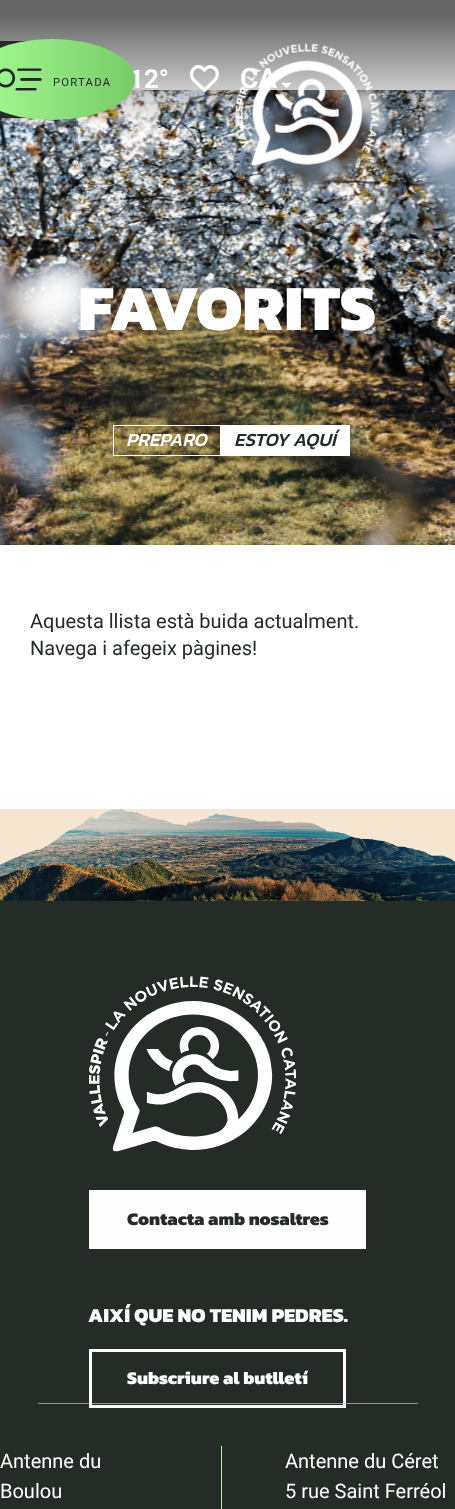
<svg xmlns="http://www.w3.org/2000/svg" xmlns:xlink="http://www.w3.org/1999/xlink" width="455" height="1509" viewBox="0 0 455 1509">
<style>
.cls-1{font:bold 26px Roboto;fill:#fefefe}
.cls-2{font:11.25px Roboto;letter-spacing:1.25px;fill:#252c28}
.cls-3{font:bold 28px Roboto;fill:#fefefe}
.cls-4{font:800 65px Kanit;fill:#fefefe}
.cls-5{font:italic 500 18.75px Kanit;fill:#fefefe}
.cls-6{font:italic 500 18.75px Kanit;fill:#252c28}
.cls-7{font:20px Roboto;fill:#252c28}
.cls-8{font:800 18px Kanit;fill:#252c28}
.cls-9{font:800 20px Kanit;fill:#fefefe}
.cls-10{font:800 18px Kanit;fill:#fefefe}
.cls-11{font:20px Roboto;fill:#fefefe}
</style>
<defs>
<linearGradient id="g1" gradientUnits="userSpaceOnUse" x1="228" y1="0" x2="228" y2="160"><stop offset="0.1" stop-color="#000000" stop-opacity="0.6"/><stop offset="0.8" stop-color="#000000" stop-opacity="0"/></linearGradient>
<linearGradient id="g2" gradientUnits="userSpaceOnUse" x1="-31" y1="79" x2="135" y2="79"><stop offset="0" stop-color="#a6fc95"/><stop offset="1" stop-color="#78cc68"/></linearGradient>
</defs>
<rect width="100%" height="100%" fill="#ffffff"/>
<image xlink:href="image4.png" x="0" y="90" width="455" height="455"/>
<rect fill="url(#g1)" x="0" y="0" width="455" height="124"/>
<rect fill="#252c28" x="0" y="41" width="27" height="77"/>
<image xlink:href="image2.png" x="189" y="65" width="30" height="27"/>
<image xlink:href="image3.png" x="281" y="82" width="11" height="6"/>
<rect fill="none" stroke="#fefefe" x="113.5" y="425.5" width="107" height="30"/>
<rect fill="#fefefe" x="221" y="425" width="129" height="31"/>
<rect fill="#f5e6d2" x="0" y="809" width="455" height="92"/>
<image xlink:href="image5.png" x="0" y="808" width="455" height="93"/>
<rect fill="#252c28" x="0" y="901" width="455" height="608"/>
<image xlink:href="image6.png" x="89" y="976" width="207" height="176"/>
<rect fill="#fefefe" x="89" y="1190" width="277" height="59"/>
<rect fill="none" stroke="#fefefe" stroke-width="3" x="90.5" y="1350.5" width="254" height="56"/>
<rect fill="#fefefe" fill-opacity="0.5" x="38" y="1403" width="380" height="1"/>
<rect fill="#a6fc95" x="221" y="1446" width="1" height="63"/>
<text class="cls-1" x="129" y="88">12°</text>
<ellipse fill="url(#g2)" cx="52" cy="79.5" rx="83" ry="40.5"/>
<image xlink:href="image0.png" x="0" y="68" width="42" height="23"/>
<text class="cls-2" x="53" y="86">PORTADA</text>
<text class="cls-3" x="240" y="88">CA</text>
<image xlink:href="image1.png" x="234" y="43" width="145" height="123"/>
<text class="cls-4" x="78" y="330">FAVORITS</text>
<text class="cls-5" x="126" y="446">PREPARO</text>
<text class="cls-6" x="234" y="446">ESTOY AQUÍ</text>
<text class="cls-7"><tspan x="30" y="628">Aquesta llista està buida actualment.</tspan><tspan x="30" y="655">Navega i afegeix pàgines!</tspan></text>
<text class="cls-8" x="127" y="1225">Contacta amb nosaltres</text>
<text class="cls-9" x="88" y="1322">AIXÍ QUE NO TENIM PEDRES.</text>
<text class="cls-10" x="127" y="1384">Subscriure al butlletí</text>
<text class="cls-11"><tspan x="0" y="1468">Antenne du</tspan><tspan x="0" y="1498">Boulou</tspan></text>
<text class="cls-11"><tspan x="285" y="1468">Antenne du Céret</tspan><tspan x="285" y="1498">5 rue Saint Ferréol</tspan></text>
</svg>
